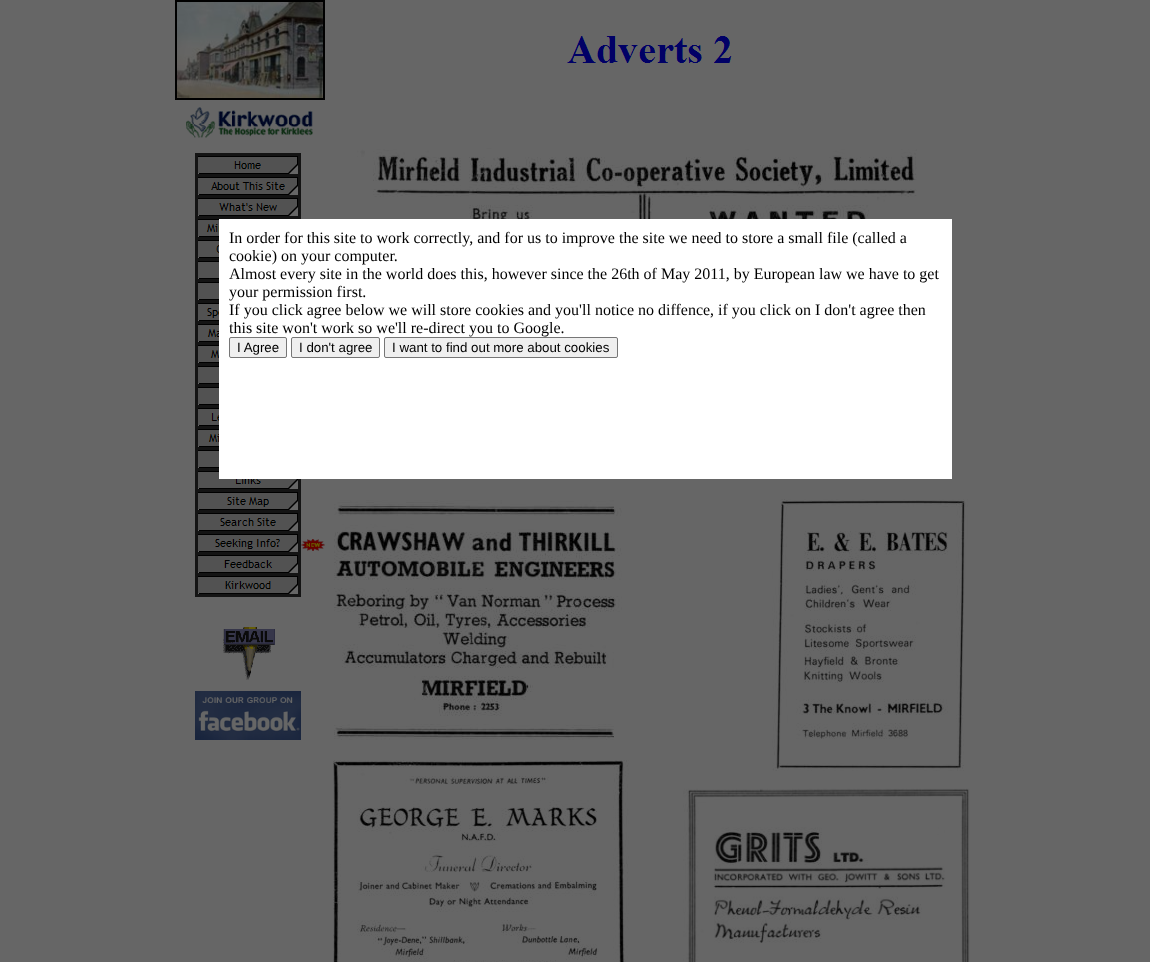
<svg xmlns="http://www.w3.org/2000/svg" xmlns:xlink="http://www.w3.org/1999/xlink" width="1150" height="962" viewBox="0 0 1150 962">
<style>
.cls-1{font:16px Liberation Serif;fill:#000000}
.cls-2{font:13.3px Liberation Sans;fill:#000000}
</style>
<rect width="100%" height="100%" fill="#666666"/>
<rect fill="none" stroke="#000000" stroke-width="2" x="176" y="1" width="148" height="98"/>
<image xlink:href="image0.png" x="177" y="2" width="146" height="96"/>
<image xlink:href="image1.png" x="186" y="107" width="127" height="31"/>
<rect fill="#141414" x="195" y="153" width="106" height="444"/>
<image xlink:href="image2.png" x="198" y="156" width="100" height="18"/>
<image xlink:href="image3.png" x="198" y="177" width="100" height="18"/>
<image xlink:href="image4.png" x="198" y="198" width="100" height="18"/>
<image xlink:href="image5.png" x="198" y="219" width="21" height="18"/>
<image xlink:href="image6.png" x="198" y="240" width="21" height="18"/>
<image xlink:href="image7.png" x="198" y="261" width="21" height="18"/>
<image xlink:href="image8.png" x="198" y="282" width="21" height="18"/>
<image xlink:href="image9.png" x="198" y="303" width="21" height="18"/>
<image xlink:href="image10.png" x="198" y="324" width="21" height="18"/>
<image xlink:href="image11.png" x="198" y="345" width="21" height="18"/>
<image xlink:href="image7.png" x="198" y="366" width="21" height="18"/>
<image xlink:href="image7.png" x="198" y="387" width="21" height="18"/>
<image xlink:href="image12.png" x="198" y="408" width="21" height="18"/>
<image xlink:href="image13.png" x="198" y="429" width="21" height="18"/>
<image xlink:href="image7.png" x="198" y="450" width="21" height="18"/>
<image xlink:href="image14.png" x="198" y="471" width="100" height="18"/>
<image xlink:href="image15.png" x="198" y="492" width="100" height="18"/>
<image xlink:href="image16.png" x="198" y="513" width="100" height="18"/>
<image xlink:href="image17.png" x="198" y="534" width="100" height="18"/>
<image xlink:href="image18.png" x="198" y="555" width="100" height="18"/>
<image xlink:href="image19.png" x="198" y="576" width="100" height="18"/>
<image xlink:href="image20.png" x="223" y="627" width="52" height="53"/>
<image xlink:href="image21.png" x="195" y="691" width="106" height="49"/>
<image xlink:href="image22.png" x="301" y="539" width="24" height="12"/>
<image xlink:href="image23.png" x="567" y="36" width="165" height="27"/>
<image xlink:href="image24.png" x="357" y="148" width="587" height="71"/>
<image xlink:href="image25.png" x="334" y="500" width="288" height="240"/>
<image xlink:href="image26.png" x="772" y="499" width="196" height="272"/>
<image xlink:href="image27.png" x="333" y="760" width="296" height="202"/>
<image xlink:href="image28.png" x="683" y="788" width="287" height="174"/>
<rect fill="#ffffff" x="219" y="219" width="733" height="260"/>
<rect fill="#efefef" stroke="#767676" x="229.5" y="337.5" width="57" height="20" rx="1.5"/>
<rect fill="#efefef" stroke="#767676" x="291.5" y="337.5" width="88" height="20" rx="1.5"/>
<rect fill="#efefef" stroke="#767676" x="384.5" y="337.5" width="233" height="20" rx="1.5"/>
<text class="cls-1"><tspan x="229" y="243">In order for this site to work correctly, and for us to improve the site we need to store a small file (called a</tspan><tspan x="229" y="261">cookie) on your computer.</tspan><tspan x="229" y="279">Almost every site in the world does this, however since the 26th of May 2011, by European law we have to get</tspan><tspan x="229" y="297">your permission first.</tspan><tspan x="229" y="315">If you click agree below we will store cookies and you'll notice no diffence, if you click on I don't agree then</tspan><tspan x="229" y="333">this site won't work so we'll re-direct you to Google.</tspan></text>
<text class="cls-2" x="237" y="352">I Agree</text>
<text class="cls-2" x="299" y="352">I don't agree</text>
<text class="cls-2" x="392" y="352">I want to find out more about cookies</text>
</svg>
